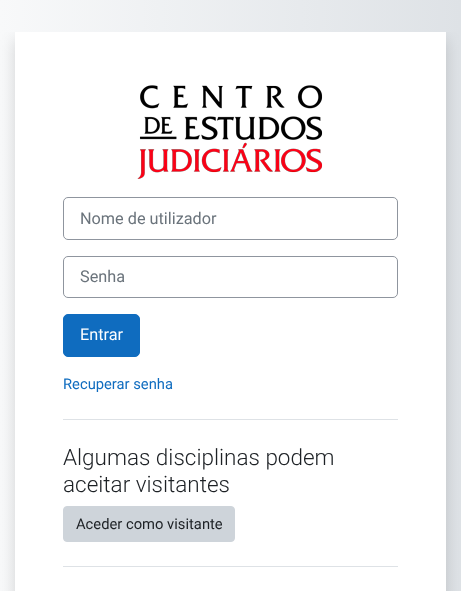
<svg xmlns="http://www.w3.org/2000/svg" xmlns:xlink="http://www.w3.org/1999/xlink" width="461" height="591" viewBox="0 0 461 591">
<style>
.cls-1{font:16.25px Roboto;fill:#6a737b}
.cls-2{font:16.25px Roboto;fill:#ffffff}
.cls-3{font:14.75px Roboto;fill:#0f6cbf}
.cls-4{font:300 22.5px Roboto;fill:#1d2125}
.cls-5{font:14.75px Roboto;fill:#1d2125}
</style>
<defs>
<linearGradient id="g1" gradientUnits="userSpaceOnUse" x1="0" y1="365" x2="461" y2="365"><stop offset="0" stop-color="#f8f9fa"/><stop offset="1" stop-color="#dee2e6"/></linearGradient>
<clipPath id="clip1"><rect x="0" y="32" width="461" height="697"/></clipPath>
</defs>
<rect width="100%" height="100%" fill="#ffffff"/>
<rect fill="url(#g1)" x="0" y="0" width="461" height="591"/>
<g clip-path="url(#clip1)">
<rect fill="#000000" fill-opacity="0.15" filter="blur(8px)" x="15" y="40" width="431" height="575"/>
</g>
<rect fill="#ffffff" x="15" y="32" width="431" height="559"/>
<image xlink:href="image0.png" x="137" y="85" width="186" height="94"/>
<rect fill="none" stroke="#8f959e" x="63.5" y="197.5" width="334" height="42" rx="4.5"/>
<rect fill="none" stroke="#8f959e" x="63.5" y="256.5" width="334" height="41" rx="4.5"/>
<rect fill="#0f6cbf" stroke="#0f6cbf" x="63.5" y="314.5" width="76" height="42" rx="4.5"/>
<rect fill="#dee2e6" x="63" y="419" width="335" height="1"/>
<rect fill="#ced4da" stroke="#ced4da" x="63.5" y="506.5" width="171" height="35" rx="3.5"/>
<rect fill="#dee2e6" x="63" y="566" width="335" height="1"/>
<text class="cls-1" x="80" y="224">Nome de utilizador</text>
<text class="cls-1" x="80" y="282">Senha</text>
<text class="cls-2" x="80" y="340">Entrar</text>
<text class="cls-3" x="63" y="389">Recuperar senha</text>
<text class="cls-4"><tspan x="63" y="465">Algumas disciplinas podem</tspan><tspan x="63" y="492">aceitar visitantes</tspan></text>
<text class="cls-5" x="76" y="529">Aceder como visitante</text>
</svg>
